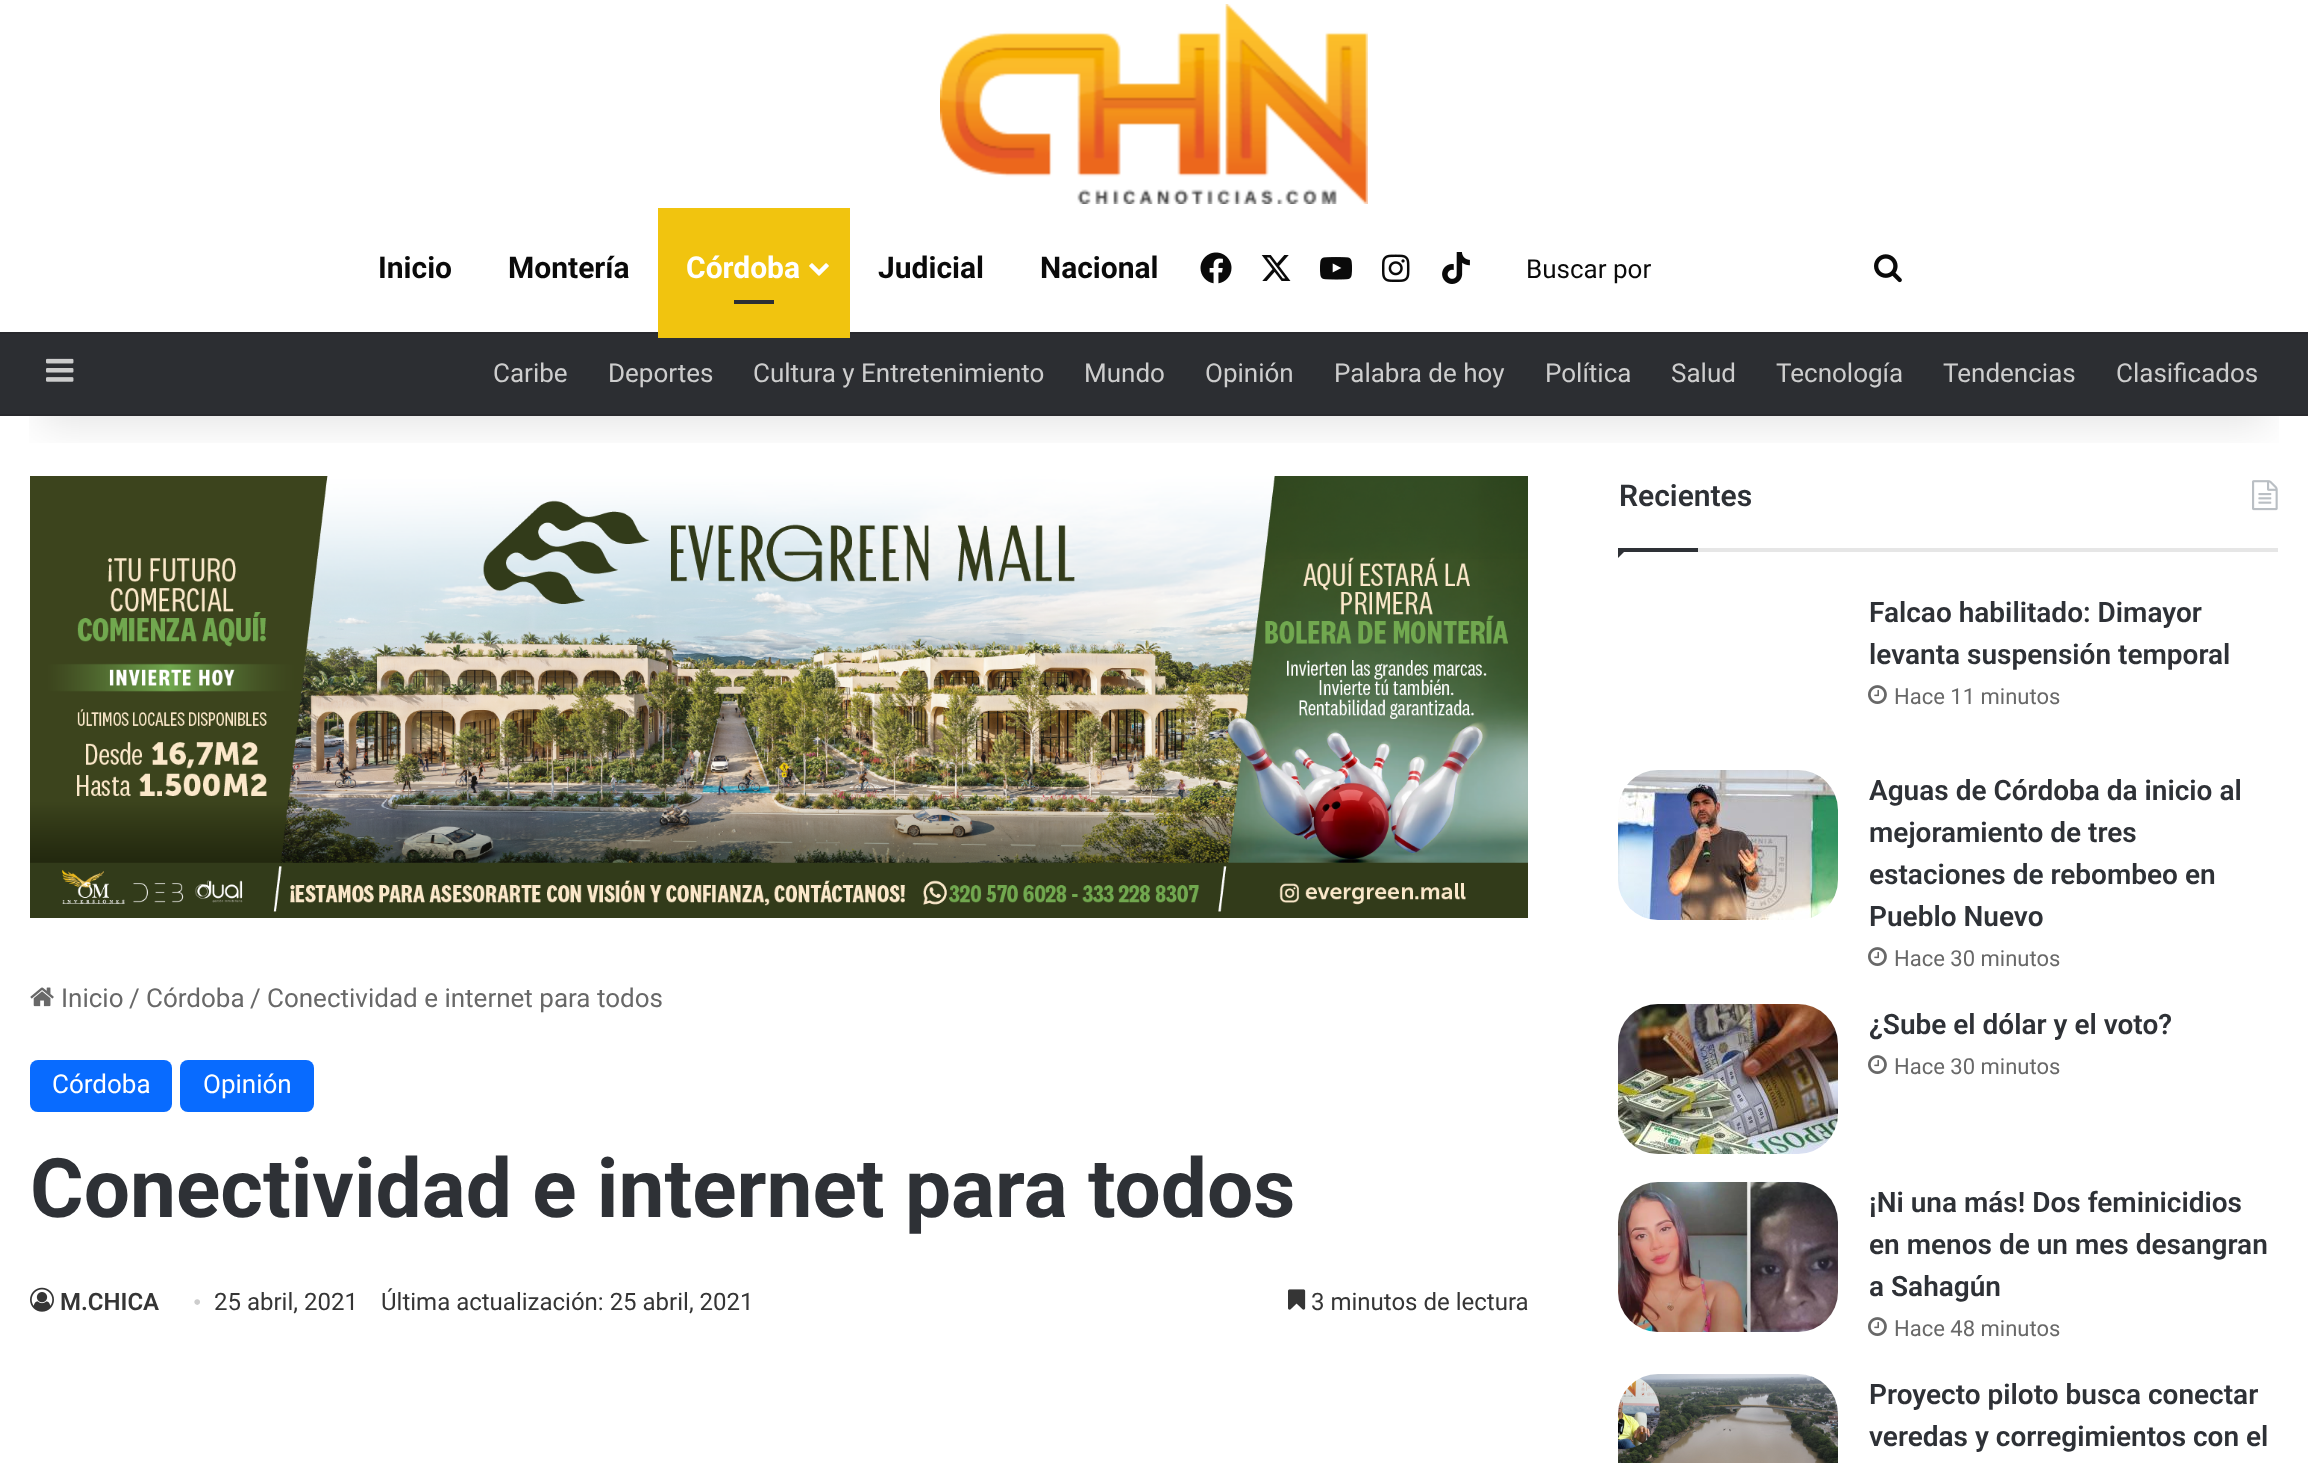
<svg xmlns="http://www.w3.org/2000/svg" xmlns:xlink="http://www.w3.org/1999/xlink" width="2308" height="1463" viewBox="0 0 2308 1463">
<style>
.cls-1{font:bold 30px Roboto;fill:#0a0a0a}
.cls-2{font:bold 30px Roboto;fill:#ffffff}
.cls-3{font:26px Roboto;fill:#0a0a0a}
.cls-4{font:26px Roboto;fill:#cdcdcd}
.cls-5{font:26px Roboto;fill:#686868}
.cls-6{font:26px Roboto;fill:#ffffff}
.cls-7{font:bold 82px Roboto;fill:#2e3136}
.cls-8{font:600 24px Roboto;fill:#353535}
.cls-9{font:24px Liberation Serif;fill:#cdcdcd}
.cls-10{font:24px Roboto;fill:#353535}
.cls-11{font:600 30px Roboto;fill:#2e3136}
.cls-12{font:600 28px Roboto;fill:#2e3136}
.cls-13{font:22px Roboto;fill:#686868}
</style>
<defs>
<clipPath id="clip1"><rect x="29" y="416" width="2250" height="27"/></clipPath>
</defs>
<rect width="100%" height="100%" fill="#ffffff"/>
<image xlink:href="image9.png" x="30" y="476" width="1498" height="442"/>
<image xlink:href="image13.png" x="2252" y="480" width="26" height="31"/>
<g clip-path="url(#clip1)">
<rect fill="#000000" fill-opacity="0.1" filter="blur(20px)" x="40" y="90" width="2228" height="336"/>
</g>
<image xlink:href="image0.png" x="940" y="4" width="428" height="200"/>
<rect fill="#2c2e32" x="0" y="334" width="2308" height="80"/>
<rect fill="#28292d" x="0" y="332" width="2308" height="2"/>
<rect fill="#f1c40f" x="658" y="208" width="192" height="130"/>
<image xlink:href="image1.png" x="809" y="263" width="20" height="13"/>
<rect fill="#2c2f34" x="734" y="300" width="40" height="4"/>
<image xlink:href="image2.png" x="1200" y="252" width="32" height="32"/>
<image xlink:href="image3.png" x="1261" y="255" width="30" height="26"/>
<image xlink:href="image4.png" x="1320" y="257" width="32" height="23"/>
<image xlink:href="image5.png" x="1382" y="254" width="28" height="28"/>
<image xlink:href="image6.png" x="1442" y="252" width="28" height="32"/>
<image xlink:href="image7.png" x="1874" y="254" width="28" height="29"/>
<rect fill="#28292d" x="0" y="414" width="2308" height="2"/>
<image xlink:href="image8.png" x="46" y="358" width="28" height="24"/>
<image xlink:href="image10.png" x="30" y="987" width="24" height="20"/>
<rect fill="#086bff" x="30" y="1060" width="142" height="52" rx="8"/>
<rect fill="#086bff" x="180" y="1060" width="134" height="52" rx="8"/>
<image xlink:href="image11.png" x="30" y="1287" width="24" height="25"/>
<image xlink:href="image12.png" x="1288" y="1289" width="18" height="21"/>
<rect fill="#e6e6e6" x="1698" y="548" width="580" height="4"/>
<path fill="#2e3136" d="M1618 548H1628L1618 558Z"/>
<rect fill="#2e3136" x="1618" y="548" width="80" height="4"/>
<image xlink:href="image14.png" x="1868" y="685" width="19" height="19"/>
<image xlink:href="image15.png" x="1618" y="770" width="220" height="150"/>
<image xlink:href="image14.png" x="1868" y="947" width="19" height="19"/>
<image xlink:href="image16.png" x="1618" y="1004" width="220" height="150"/>
<image xlink:href="image14.png" x="1868" y="1055" width="19" height="19"/>
<image xlink:href="image17.png" x="1618" y="1182" width="220" height="150"/>
<image xlink:href="image14.png" x="1868" y="1317" width="19" height="19"/>
<image xlink:href="image18.png" x="1618" y="1374" width="220" height="89"/>
<text class="cls-1" x="378" y="278">Inicio</text>
<text class="cls-1" x="508" y="278">Montería</text>
<text class="cls-2" x="686" y="278">Córdoba</text>
<text class="cls-1" x="878" y="278">Judicial</text>
<text class="cls-1" x="1040" y="278">Nacional</text>
<text class="cls-3" x="1526" y="278">Buscar por</text>
<text class="cls-4" x="493" y="382">Caribe</text>
<text class="cls-4" x="608" y="382">Deportes</text>
<text class="cls-4" x="753" y="382">Cultura y Entretenimiento</text>
<text class="cls-4" x="1084" y="382">Mundo</text>
<text class="cls-4" x="1205" y="382">Opinión</text>
<text class="cls-4" x="1334" y="382">Palabra de hoy</text>
<text class="cls-4" x="1545" y="382">Política</text>
<text class="cls-4" x="1671" y="382">Salud</text>
<text class="cls-4" x="1776" y="382">Tecnología</text>
<text class="cls-4" x="1943" y="382">Tendencias</text>
<text class="cls-4" x="2116" y="382">Clasificados</text>
<text class="cls-5" x="61" y="1007">Inicio</text>
<text class="cls-5" x="129" y="1007">/</text>
<text class="cls-5" x="146" y="1007">Córdoba</text>
<text class="cls-5" x="250" y="1007">/</text>
<text class="cls-5" x="267" y="1007">Conectividad e internet para todos</text>
<text class="cls-6" x="52" y="1093">Córdoba</text>
<text class="cls-6" x="203" y="1093">Opinión</text>
<text class="cls-7" x="30" y="1217">Conectividad e internet para todos</text>
<text class="cls-8" x="60" y="1310">M.CHICA</text>
<text class="cls-9" x="193" y="1310">•</text>
<text class="cls-10" x="214" y="1310">25 abril, 2021</text>
<text class="cls-10" x="381" y="1310">Última actualización: 25 abril, 2021</text>
<text class="cls-10" x="1311" y="1310">3 minutos de lectura</text>
<text class="cls-11" x="1619" y="506">Recientes</text>
<text class="cls-12"><tspan x="1869" y="622">Falcao habilitado: Dimayor</tspan><tspan x="1869" y="664">levanta suspensión temporal</tspan></text>
<text class="cls-13" x="1894" y="704">Hace 11 minutos</text>
<text class="cls-12"><tspan x="1869" y="800">Aguas de Córdoba da inicio al</tspan><tspan x="1869" y="842">mejoramiento de tres</tspan><tspan x="1869" y="884">estaciones de rebombeo en</tspan><tspan x="1869" y="926">Pueblo Nuevo</tspan></text>
<text class="cls-13" x="1894" y="966">Hace 30 minutos</text>
<text class="cls-12" x="1869" y="1034">¿Sube el dólar y el voto?</text>
<text class="cls-13" x="1894" y="1074">Hace 30 minutos</text>
<text class="cls-12"><tspan x="1869" y="1212">¡Ni una más! Dos feminicidios</tspan><tspan x="1869" y="1254">en menos de un mes desangran</tspan><tspan x="1869" y="1296">a Sahagún</tspan></text>
<text class="cls-13" x="1894" y="1336">Hace 48 minutos</text>
<text class="cls-12"><tspan x="1869" y="1404">Proyecto piloto busca conectar</tspan><tspan x="1869" y="1446">veredas y corregimientos con el</tspan></text>
</svg>
